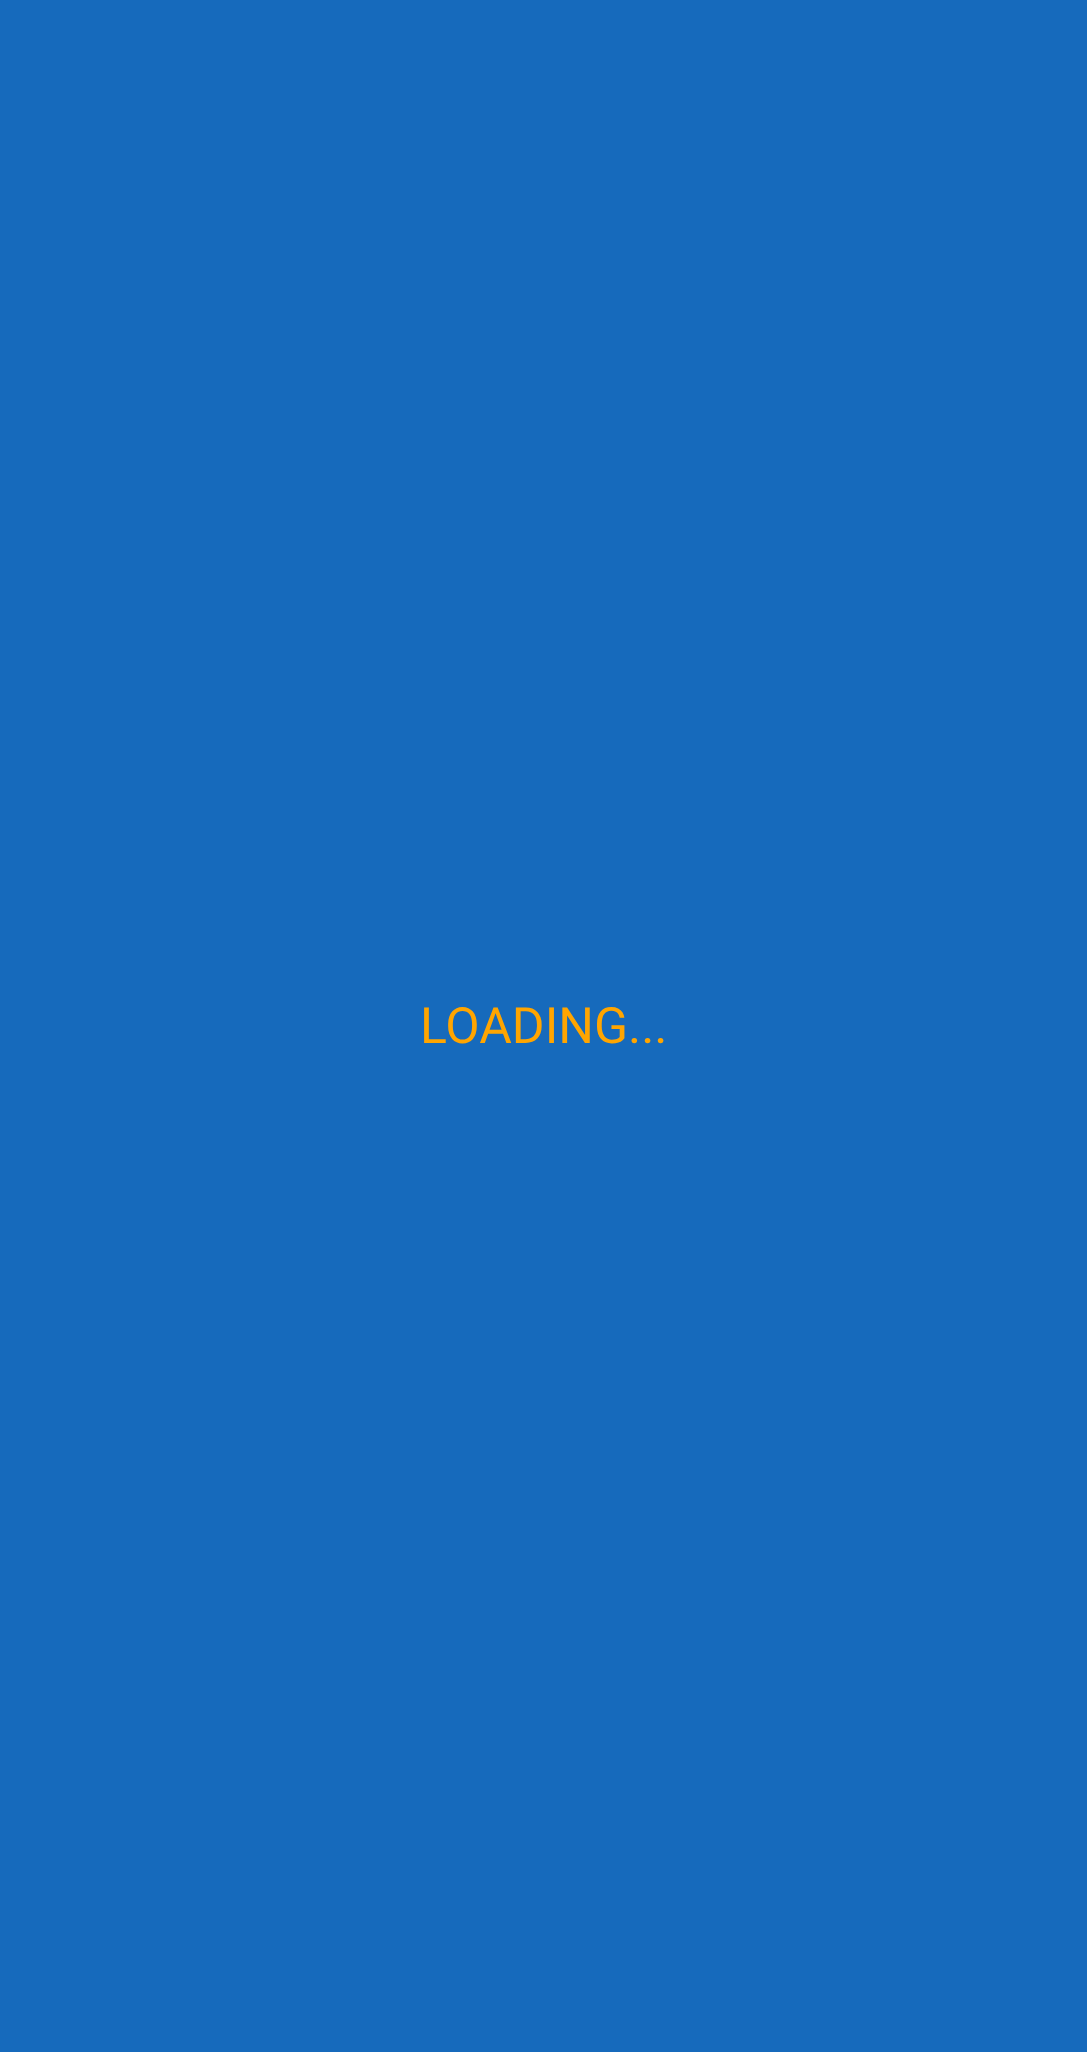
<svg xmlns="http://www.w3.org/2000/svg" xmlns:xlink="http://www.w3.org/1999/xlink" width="1087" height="2052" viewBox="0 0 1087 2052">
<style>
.cls-1{font:50px Roboto;fill:#ffa500}
</style>
<rect width="100%" height="100%" fill="#166abc"/>
<text class="cls-1" x="420" y="1043">LOADING...</text>
</svg>
